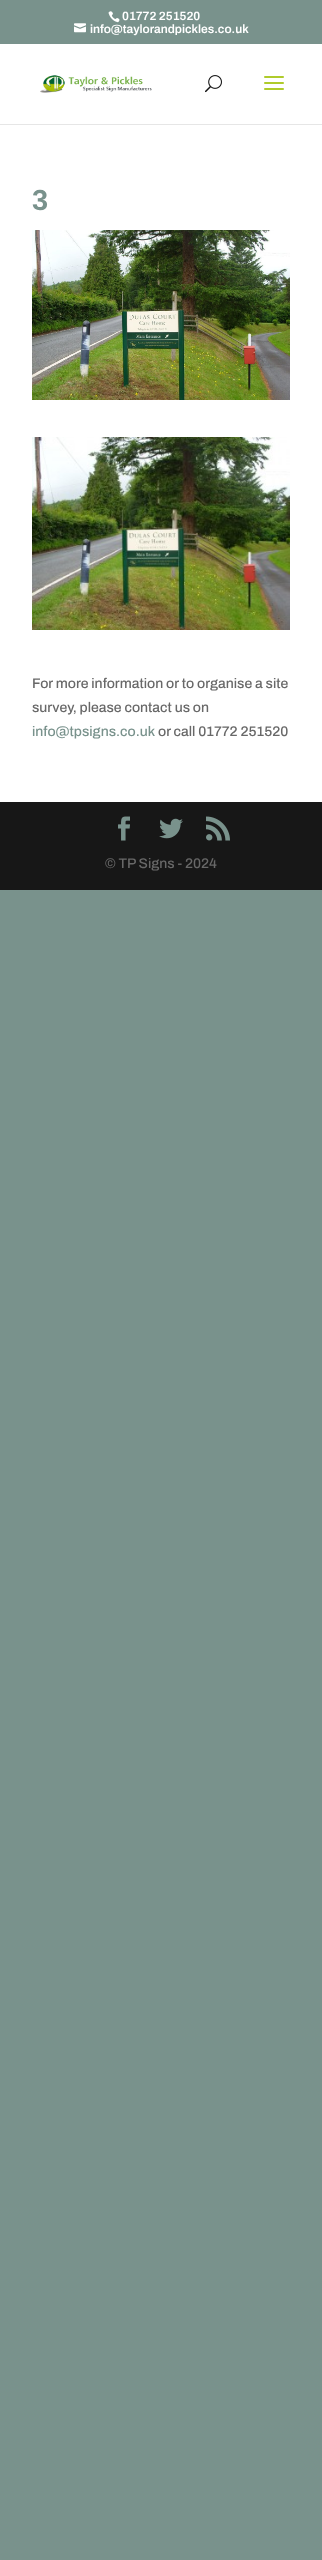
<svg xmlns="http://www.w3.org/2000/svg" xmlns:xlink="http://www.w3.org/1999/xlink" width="322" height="2560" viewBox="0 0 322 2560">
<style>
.cls-1{font:600 12px Archivo;fill:#ffffff}
.cls-2{font:bold 29px Liberation Sans;fill:#79928c}
.cls-3{font:500 14px Archivo;fill:#686868}
.cls-4{font:500 14px Archivo;fill:#79928c}
</style>
<rect width="100%" height="100%" fill="#79928c"/>
<image xlink:href="image0.png" x="108" y="11" width="12" height="12"/>
<image xlink:href="image1.png" x="74" y="23" width="12" height="10"/>
<rect fill="#e6e6e6" x="0" y="124" width="322" height="1"/>
<rect fill="#ffffff" x="0" y="44" width="322" height="80"/>
<image xlink:href="image2.png" x="40" y="75" width="112" height="18"/>
<image xlink:href="image3.png" x="205" y="75" width="17" height="18"/>
<image xlink:href="image4.png" x="264" y="76" width="20" height="14"/>
<rect fill="#ffffff" x="0" y="125" width="322" height="677"/>
<image xlink:href="image5.png" x="32" y="230" width="258" height="170"/>
<image xlink:href="image6.png" x="32" y="437" width="258" height="193"/>
<rect fill="#171717" x="0" y="802" width="322" height="88"/>
<image xlink:href="image7.png" x="118" y="816" width="12" height="25"/>
<image xlink:href="image8.png" x="159" y="818" width="24" height="21"/>
<image xlink:href="image9.png" x="206" y="816" width="24" height="25"/>
<text class="cls-1" x="122" y="20">01772 251520</text>
<text class="cls-1" x="90" y="33">info@taylorandpickles.co.uk</text>
<text class="cls-2" x="32" y="210">3</text>
<text class="cls-3"><tspan x="32" y="688">For more information or to organise a site</tspan><tspan x="32" y="712">survey, please contact us on</tspan></text>
<text class="cls-4" x="32" y="736">info@tpsigns.co.uk</text>
<text class="cls-3" x="158" y="736">or call 01772 251520</text>
<text class="cls-3" x="105" y="868">© TP Signs - 2024</text>
</svg>
